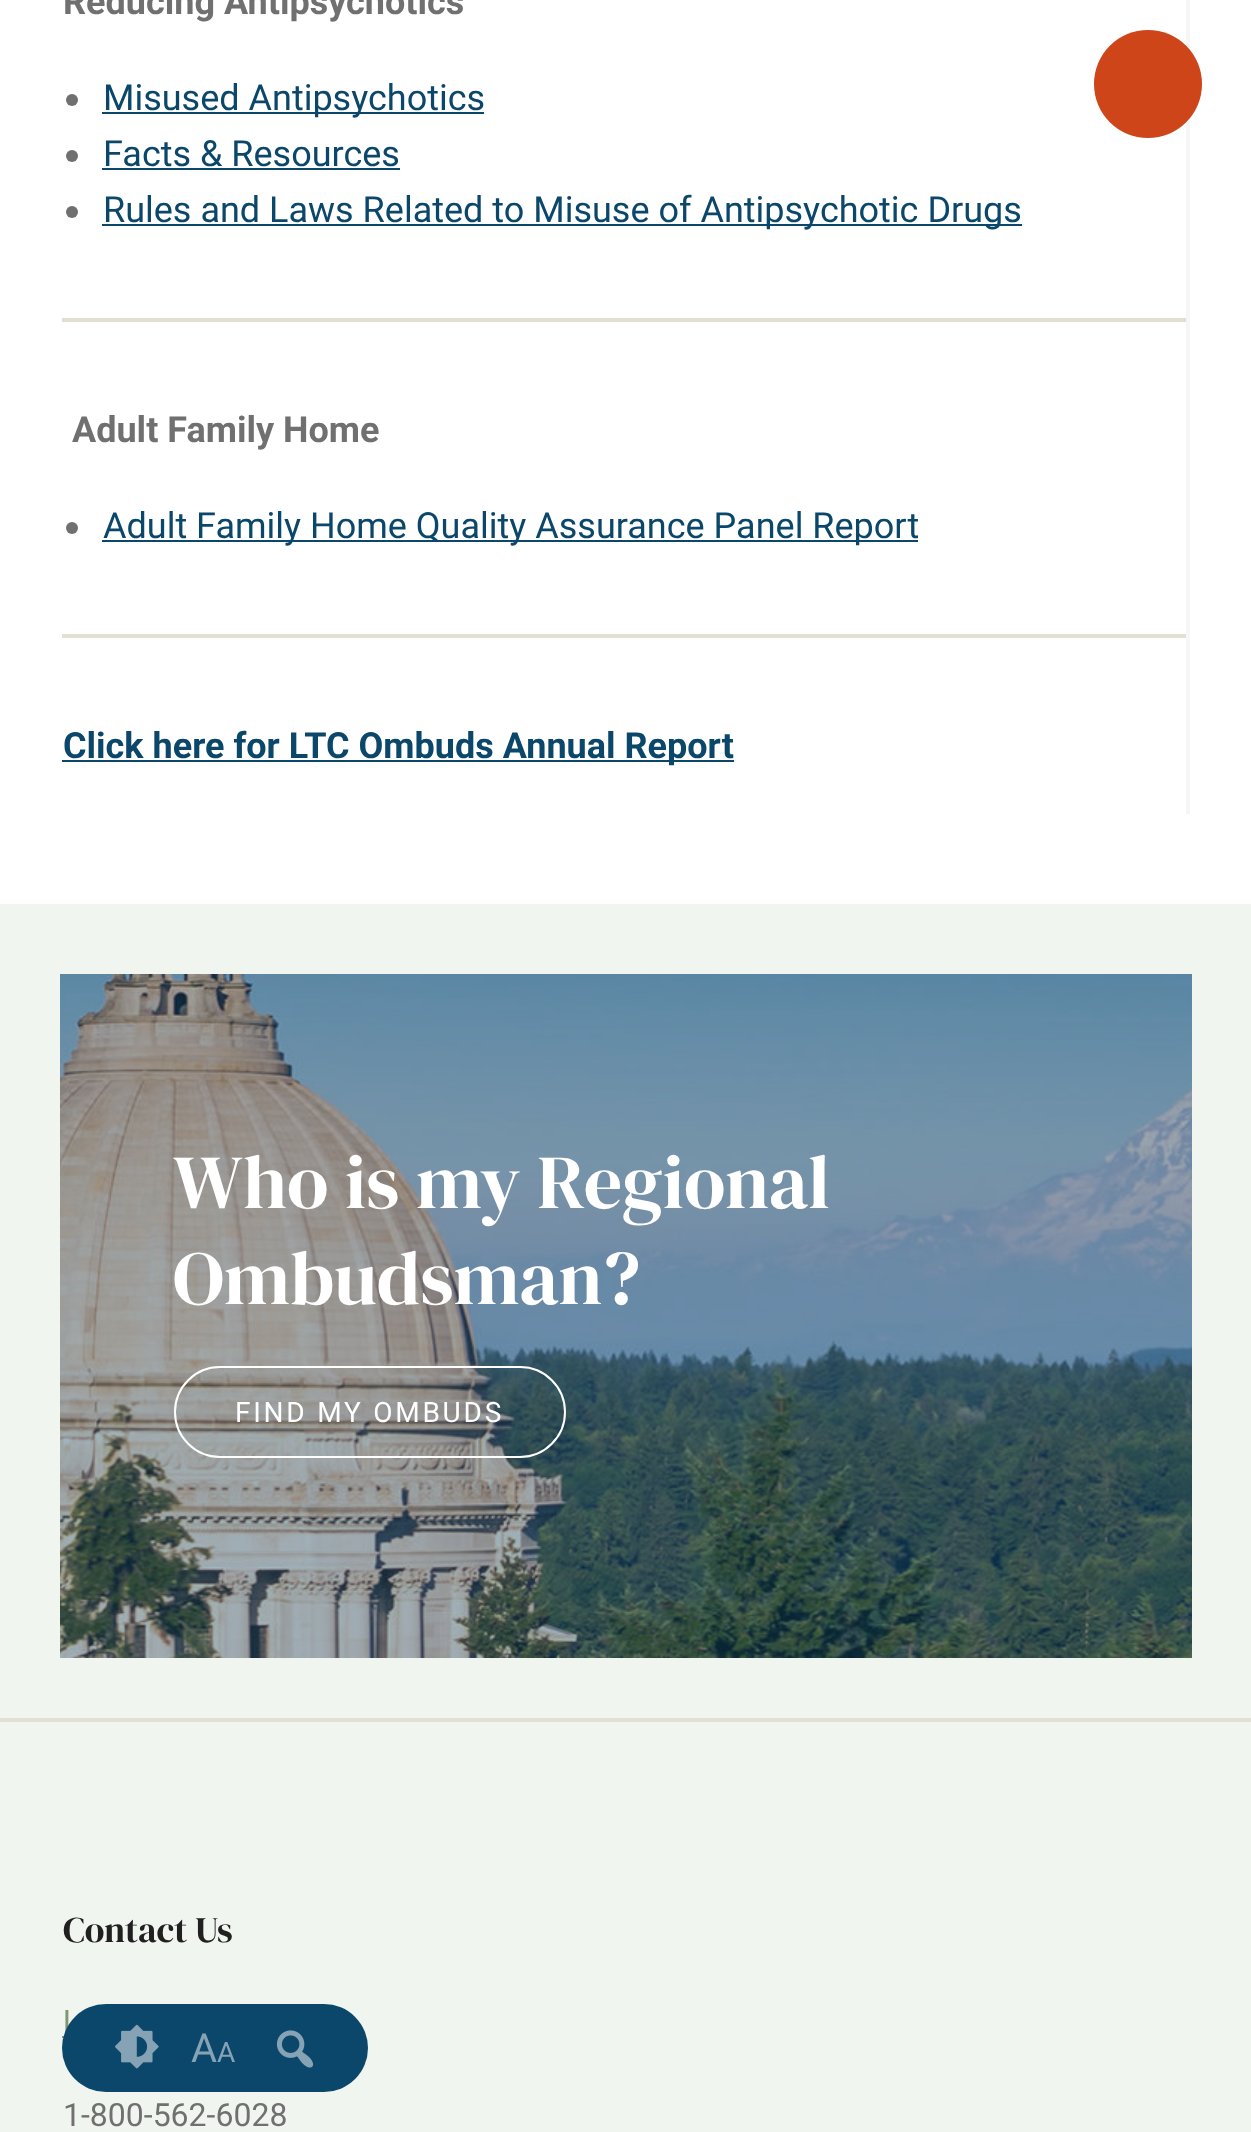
<svg xmlns="http://www.w3.org/2000/svg" xmlns:xlink="http://www.w3.org/1999/xlink" width="1251" height="2132" viewBox="0 0 1251 2132">
<style>
.cls-1{font:bold 36px Roboto;fill:#707070}
.cls-2{font:36px Roboto;fill:#0b476b}
.cls-3{font:bold 36px Roboto;fill:#0b476b}
.cls-4{font:76px DM Serif Display;fill:#ffffff}
.cls-5{font:28px Roboto;letter-spacing:2.75px;fill:#ffffff}
.cls-6{font:36px DM Serif Display;fill:#202020}
.cls-7{font:32px Roboto;fill:#7c996f}
.cls-8{font:32px Roboto;fill:#707070}
.cls-9{font:40px Roboto;fill:#85a3b5}
.cls-10{font:28px Roboto;fill:#85a3b5}
</style>
<rect width="100%" height="100%" fill="#f1f5ef"/>
<rect fill="#ffffff" x="0" y="0" width="1251" height="904"/>
<rect fill="#f6f6f6" x="1186" y="0" width="4" height="814"/>
<circle fill="#707070" cx="72" cy="100" r="6"/>
<rect fill="#0b476b" x="102" y="112" width="382" height="2"/>
<circle fill="#707070" cx="72" cy="156" r="6"/>
<rect fill="#0b476b" x="102" y="168" width="298" height="2"/>
<circle fill="#707070" cx="72" cy="212" r="6"/>
<rect fill="#0b476b" x="102" y="224" width="920" height="2"/>
<rect fill="#e2e0d3" x="62" y="318" width="1124" height="4"/>
<circle fill="#707070" cx="72" cy="528" r="6"/>
<rect fill="#0b476b" x="102" y="540" width="816" height="2"/>
<rect fill="#e2e0d3" x="62" y="634" width="1124" height="4"/>
<rect fill="#0b476b" x="62" y="760" width="672" height="2"/>
<circle fill="#cd4518" cx="1148" cy="84" r="54"/>
<image xlink:href="image0.png" x="60" y="974" width="1132" height="684"/>
<rect fill="#14567b" fill-opacity="0.4" x="60" y="974" width="1132" height="392"/>
<rect fill="#14567b" fill-opacity="0.4" x="60" y="1366" width="1132" height="292"/>
<rect fill="none" stroke="#ffffff" stroke-width="2" x="175" y="1367" width="390" height="90" rx="45"/>
<rect fill="#e2e0d3" x="0" y="1718" width="1251" height="4"/>
<rect fill="#7c996f" x="62" y="2036" width="2" height="2"/>
<text class="cls-1" x="63" y="14">Reducing Antipsychotics</text>
<text class="cls-2"><tspan x="103" y="110">Misused Antipsychotics</tspan><tspan x="103" y="166">Facts &amp; Resources</tspan><tspan x="103" y="222">Rules and Laws Related to Misuse of Antipsychotic Drugs</tspan></text>
<text class="cls-1" x="72" y="442">Adult Family Home</text>
<text class="cls-2" x="103" y="538">Adult Family Home Quality Assurance Panel Report</text>
<text class="cls-3" x="63" y="758">Click here for LTC Ombuds Annual Report</text>
<text class="cls-4"><tspan x="173" y="1208">Who is my Regional</tspan><tspan x="173" y="1304">Ombudsman?</tspan></text>
<text class="cls-5" x="235" y="1422">FIND MY OMBUDS</text>
<text class="cls-6" x="63" y="1942">Contact Us</text>
<text class="cls-7" x="63" y="2034">l</text>
<text class="cls-8" x="63" y="2126">1-800-562-6028</text>
<rect fill="#0b476b" x="62" y="2004" width="306" height="88" rx="44"/>
<image xlink:href="image1.png" x="115" y="2024" width="44" height="45"/>
<text class="cls-9" x="191" y="2062">A</text>
<text class="cls-10" x="217" y="2062">A</text>
<image xlink:href="image2.png" x="276" y="2030" width="38" height="38"/>
</svg>
